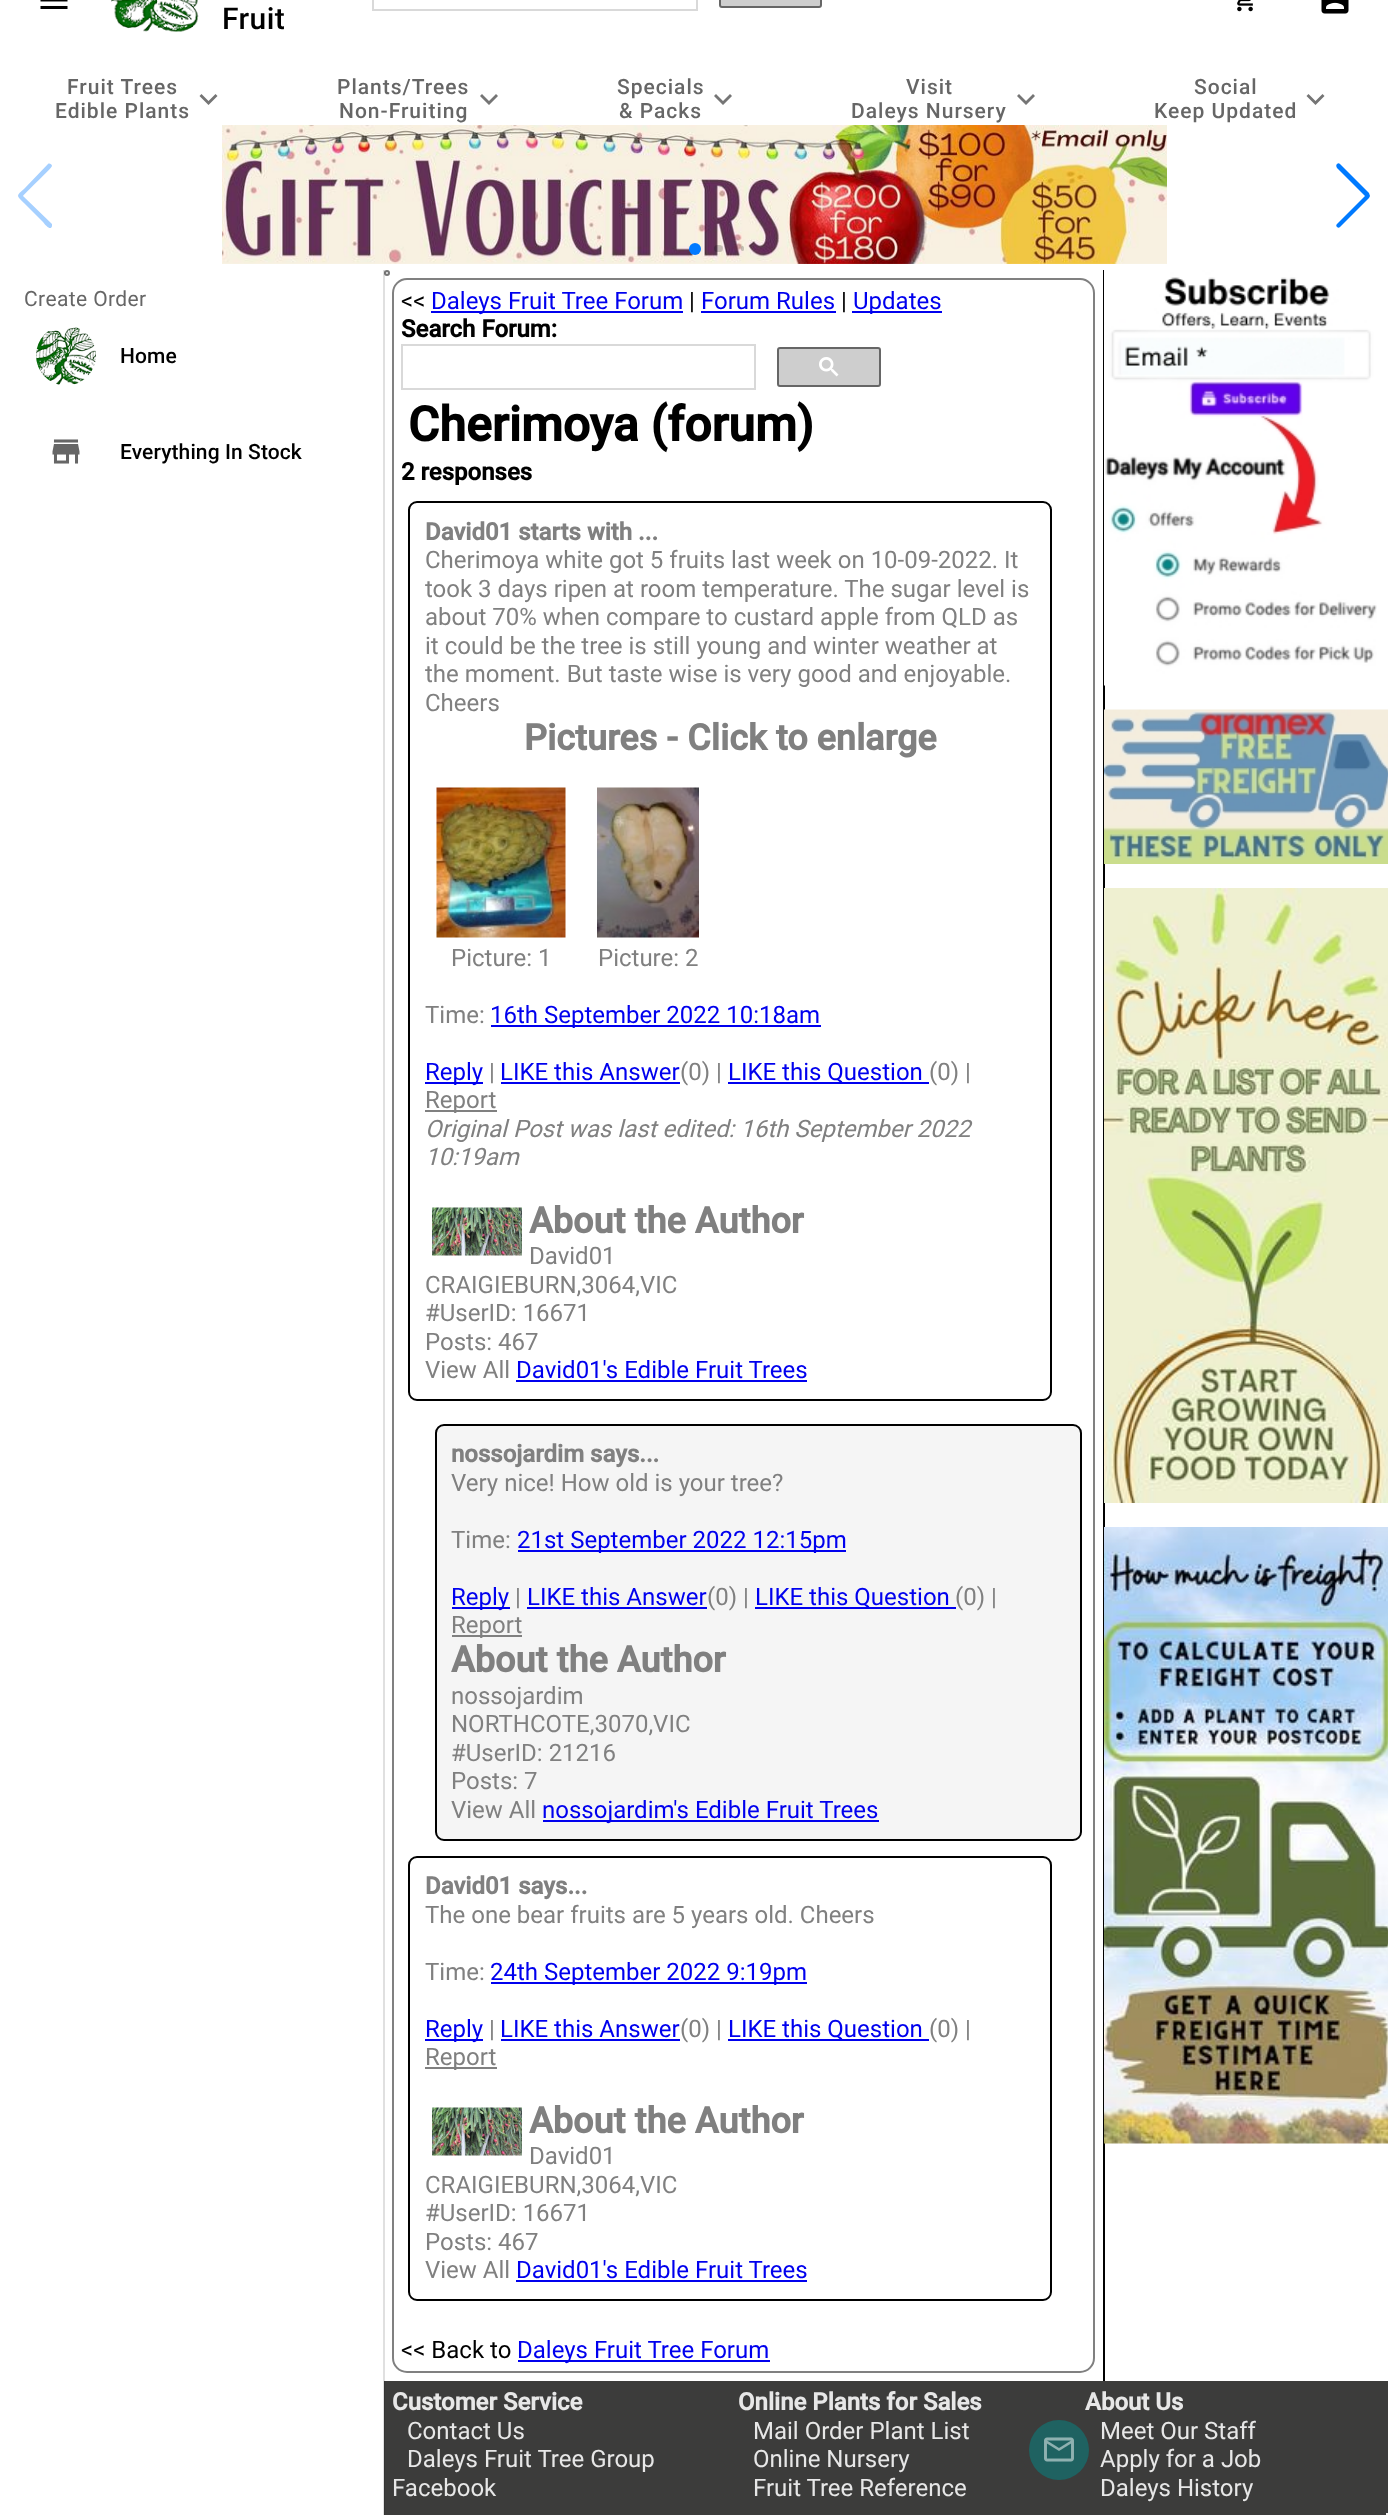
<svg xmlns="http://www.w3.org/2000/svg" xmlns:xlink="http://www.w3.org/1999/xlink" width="1388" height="2515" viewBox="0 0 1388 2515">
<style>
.cls-1{font:500 30px Roboto;letter-spacing:0.4px;fill:#000000}
.cls-2{font:500 21px Roboto;letter-spacing:1px;fill:#666666}
.cls-3{font:21px Roboto;letter-spacing:0.4px;fill:#666666}
.cls-4{font:500 21px Roboto;letter-spacing:0.1px;fill:#000000}
.cls-5{font:24px Roboto;fill:#000000}
.cls-6{font:24px Roboto;fill:#0000ee}
.cls-7{font:bold 24px Roboto;fill:#000000}
.cls-8{font:bold 48px Roboto;fill:#000000}
.cls-9{font:bold 24px Roboto;fill:#808080}
.cls-10{font:24px Roboto;fill:#808080}
.cls-11{font:bold 36px Roboto;fill:#808080}
.cls-12{font:italic 24px Roboto;fill:#808080}
.cls-13{font:bold 24px Roboto;fill:#e7e7e7}
.cls-14{font:24px Roboto;fill:#e7e7e7}
</style>
<rect width="100%" height="100%" fill="#ffffff"/>
<image xlink:href="image0.png" x="40" y="0" width="28" height="9"/>
<image xlink:href="image1.png" x="111" y="0" width="88" height="32"/>
<rect fill="none" stroke="#d9d9d9" stroke-width="2" x="373" y="-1" width="324" height="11"/>
<rect fill="#cecece" stroke="#666666" stroke-width="2" x="720" y="-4" width="101" height="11" rx="2"/>
<image xlink:href="image2.png" x="1237" y="0" width="16" height="12"/>
<image xlink:href="image3.png" x="1321" y="0" width="28" height="14"/>
<path fill="#757575" d="M215.5 94L217.5 96L208.5 105L199.5 96L201.5 94L208.5 101Z"/>
<path fill="#757575" d="M496 94L498 96L489 105L480 96L482 94L489 101Z"/>
<path fill="#757575" d="M730 94L732 96L723 105L714 96L716 94L723 101Z"/>
<path fill="#757575" d="M1033 94L1035 96L1026 105L1017 96L1019 94L1026 101Z"/>
<path fill="#757575" d="M1322.5 94L1324.5 96L1315.5 105L1306.5 96L1308.5 94L1315.5 101Z"/>
<path fill="#a6d0ff" d="M48 164C49 163 52 164 52 166C52 168 26 192 23 196L52 224V226C51 231 46 226 43 222L24 203C16 195 16 196 24 189Z"/>
<image xlink:href="image4.png" x="222" y="125" width="945" height="139"/>
<path fill="#007aff" d="M1337 227C1336 226 1336 225 1337 224L1365 196L1337 168C1336 166 1336 165 1337 164C1338 163 1339 163 1340 164L1369 193L1370 196L1369 198L1340 227C1339 228 1338 228 1337 227Z"/>
<circle fill="#007aff" cx="695" cy="249" r="6"/>
<rect fill="#000000" fill-opacity="0.2" x="714" y="245" width="9" height="7" rx="3.5"/>
<rect fill="#000000" fill-opacity="0.2" x="741" y="246" width="3" height="5" rx="1.5"/>
<circle fill="#efefef" stroke="#767676" stroke-width="2" cx="387" cy="273" r="2"/>
<rect fill="#3c3c3b" x="384" y="2381" width="1004" height="134"/>
<rect fill="#000000" fill-opacity="0.12" x="383" y="270" width="2" height="2245"/>
<image xlink:href="image5.png" x="36" y="327" width="60" height="58"/>
<image xlink:href="image6.png" x="52" y="439" width="28" height="25"/>
<rect fill="none" stroke="#808080" stroke-width="2" x="393" y="279" width="701" height="2093" rx="14"/>
<rect fill="#0000ee" x="431" y="311" width="252" height="2"/>
<rect fill="#0000ee" x="701" y="311" width="135" height="2"/>
<rect fill="#0000ee" x="852" y="311" width="90" height="2"/>
<rect fill="none" stroke="#d9d9d9" stroke-width="2" x="402" y="345" width="353" height="44"/>
<rect fill="#cecece" stroke="#666666" stroke-width="2" x="778" y="348" width="102" height="38" rx="2"/>
<image xlink:href="image7.png" x="819" y="357" width="20" height="20"/>
<rect fill="none" stroke="#000000" stroke-width="2" x="409" y="502" width="642" height="898" rx="8"/>
<image xlink:href="image8.png" x="436" y="787" width="130" height="151"/>
<image xlink:href="image9.png" x="597" y="787" width="102" height="151"/>
<rect fill="#0000ee" x="491" y="1025" width="330" height="2"/>
<rect fill="#0000ee" x="425" y="1082" width="58" height="2"/>
<rect fill="#0000ee" x="501" y="1082" width="179" height="2"/>
<rect fill="#0000ee" x="728" y="1082" width="201" height="2"/>
<rect fill="#808080" x="425" y="1110" width="72" height="2"/>
<image xlink:href="image10.png" x="432" y="1207" width="90" height="49"/>
<rect fill="#0000ee" x="516" y="1380" width="291" height="2"/>
<rect fill="#f5f5f5" stroke="#000000" stroke-width="2" x="436" y="1425" width="645" height="415" rx="8"/>
<rect fill="#0000ee" x="518" y="1550" width="328" height="2"/>
<rect fill="#0000ee" x="452" y="1607" width="58" height="2"/>
<rect fill="#0000ee" x="527" y="1607" width="180" height="2"/>
<rect fill="#0000ee" x="755" y="1607" width="201" height="2"/>
<rect fill="#808080" x="452" y="1635" width="70" height="2"/>
<rect fill="#0000ee" x="543" y="1820" width="336" height="2"/>
<rect fill="none" stroke="#000000" stroke-width="2" x="409" y="1857" width="642" height="443" rx="8"/>
<rect fill="#0000ee" x="491" y="1982" width="316" height="2"/>
<rect fill="#0000ee" x="425" y="2039" width="58" height="2"/>
<rect fill="#0000ee" x="501" y="2039" width="179" height="2"/>
<rect fill="#0000ee" x="728" y="2039" width="201" height="2"/>
<rect fill="#808080" x="425" y="2067" width="72" height="2"/>
<image xlink:href="image11.png" x="432" y="2107" width="90" height="49"/>
<rect fill="#0000ee" x="516" y="2280" width="291" height="2"/>
<rect fill="#0000ee" x="518" y="2360" width="252" height="2"/>
<rect fill="#000000" x="1103" y="270" width="2" height="2111"/>
<image xlink:href="image12.png" x="1104" y="270" width="273" height="416"/>
<image xlink:href="image13.png" x="1104" y="709" width="284" height="155"/>
<image xlink:href="image14.png" x="1104" y="888" width="284" height="615"/>
<image xlink:href="image15.png" x="1104" y="1527" width="284" height="617"/>
<circle fill="#1f6261" cx="1059" cy="2450" r="30"/>
<image xlink:href="image16.png" x="1044" y="2437" width="30" height="25"/>
<rect fill="#f5f5f5" x="1386" y="2513" width="2" height="2"/>
<text class="cls-1" x="222" y="29">Fruit</text>
<text class="cls-2" x="67" y="94">Fruit Trees</text>
<text class="cls-2" x="55" y="118">Edible Plants</text>
<text class="cls-2" x="337" y="94">Plants/Trees</text>
<text class="cls-2" x="339" y="118">Non-Fruiting</text>
<text class="cls-2" x="617" y="94">Specials</text>
<text class="cls-2" x="619" y="118">&amp; Packs</text>
<text class="cls-2" x="906" y="94">Visit</text>
<text class="cls-2" x="851" y="118">Daleys Nursery</text>
<text class="cls-2" x="1194" y="94">Social</text>
<text class="cls-2" x="1154" y="118">Keep Updated</text>
<text class="cls-3" x="24" y="306">Create Order</text>
<text class="cls-4" x="120" y="363">Home</text>
<text class="cls-4" x="120" y="459">Everything In Stock</text>
<text class="cls-5" x="401" y="309">&lt;&lt;</text>
<text class="cls-6" x="431" y="309">Daleys Fruit Tree Forum</text>
<text class="cls-5" x="689" y="309">|</text>
<text class="cls-6" x="701" y="309">Forum Rules</text>
<text class="cls-5" x="841" y="309">|</text>
<text class="cls-6" x="853" y="309">Updates</text>
<text class="cls-7" x="401" y="337">Search Forum:</text>
<text class="cls-8" x="408" y="441">Cherimoya (forum)</text>
<text class="cls-7" x="401" y="480">2 responses</text>
<text class="cls-9" x="425" y="540">David01 starts with ...</text>
<text class="cls-10"><tspan x="425" y="568">Cherimoya white got 5 fruits last week on 10-09-2022. It</tspan><tspan x="425" y="597">took 3 days ripen at room temperature. The sugar level is</tspan><tspan x="425" y="625">about 70% when compare to custard apple from QLD as</tspan><tspan x="425" y="654">it could be the tree is still young and winter weather at</tspan><tspan x="425" y="682">the moment. But taste wise is very good and enjoyable.</tspan><tspan x="425" y="711">Cheers</tspan></text>
<text class="cls-11" x="524" y="750">Pictures - Click to enlarge</text>
<text class="cls-10" x="451" y="966">Picture: 1</text>
<text class="cls-10" x="598" y="966">Picture: 2</text>
<text class="cls-10" x="425" y="1023">Time:</text>
<text class="cls-6" x="490" y="1023">16th September 2022 10:18am</text>
<text class="cls-6" x="425" y="1080">Reply</text>
<text class="cls-10" x="489" y="1080">|</text>
<text class="cls-6" x="500" y="1080">LIKE this Answer</text>
<text class="cls-10" x="680" y="1080">(0) |</text>
<text class="cls-6" x="728" y="1080">LIKE this Question</text>
<text class="cls-10" x="929" y="1080">(0) |</text>
<text class="cls-10" x="425" y="1108">Report</text>
<text class="cls-12"><tspan x="425" y="1137">Original Post was last edited: 16th September 2022</tspan><tspan x="425" y="1165">10:19am</tspan></text>
<text class="cls-11" x="529" y="1233">About the Author</text>
<text class="cls-10" x="529" y="1264">David01</text>
<text class="cls-10"><tspan x="425" y="1293">CRAIGIEBURN,3064,VIC</tspan><tspan x="425" y="1321">#UserID: 16671</tspan><tspan x="425" y="1350">Posts: 467</tspan><tspan x="425" y="1378">View All</tspan></text>
<text class="cls-6" x="516" y="1378">David01's Edible Fruit Trees</text>
<text class="cls-9" x="451" y="1462">nossojardim says...</text>
<text class="cls-10" x="451" y="1491">Very nice! How old is your tree?</text>
<text class="cls-10" x="451" y="1548">Time:</text>
<text class="cls-6" x="517" y="1548">21st September 2022 12:15pm</text>
<text class="cls-6" x="451" y="1605">Reply</text>
<text class="cls-10" x="515" y="1605">|</text>
<text class="cls-6" x="527" y="1605">LIKE this Answer</text>
<text class="cls-10" x="707" y="1605">(0) |</text>
<text class="cls-6" x="755" y="1605">LIKE this Question</text>
<text class="cls-10" x="955" y="1605">(0) |</text>
<text class="cls-10" x="451" y="1633">Report</text>
<text class="cls-11" x="451" y="1672">About the Author</text>
<text class="cls-10"><tspan x="451" y="1704">nossojardim</tspan><tspan x="451" y="1732">NORTHCOTE,3070,VIC</tspan><tspan x="451" y="1761">#UserID: 21216</tspan><tspan x="451" y="1789">Posts: 7</tspan><tspan x="451" y="1818">View All</tspan></text>
<text class="cls-6" x="542" y="1818">nossojardim's Edible Fruit Trees</text>
<text class="cls-9" x="425" y="1894">David01 says...</text>
<text class="cls-10" x="425" y="1923">The one bear fruits are 5 years old. Cheers</text>
<text class="cls-10" x="425" y="1980">Time:</text>
<text class="cls-6" x="490" y="1980">24th September 2022 9:19pm</text>
<text class="cls-6" x="425" y="2037">Reply</text>
<text class="cls-10" x="489" y="2037">|</text>
<text class="cls-6" x="500" y="2037">LIKE this Answer</text>
<text class="cls-10" x="680" y="2037">(0) |</text>
<text class="cls-6" x="728" y="2037">LIKE this Question</text>
<text class="cls-10" x="929" y="2037">(0) |</text>
<text class="cls-10" x="425" y="2065">Report</text>
<text class="cls-11" x="529" y="2133">About the Author</text>
<text class="cls-10" x="529" y="2164">David01</text>
<text class="cls-10"><tspan x="425" y="2193">CRAIGIEBURN,3064,VIC</tspan><tspan x="425" y="2221">#UserID: 16671</tspan><tspan x="425" y="2250">Posts: 467</tspan><tspan x="425" y="2278">View All</tspan></text>
<text class="cls-6" x="516" y="2278">David01's Edible Fruit Trees</text>
<text class="cls-5" x="401" y="2358">&lt;&lt; Back to</text>
<text class="cls-6" x="517" y="2358">Daleys Fruit Tree Forum</text>
<text class="cls-13" x="392" y="2410">Customer Service</text>
<text class="cls-14"><tspan x="407" y="2439">Contact Us</tspan><tspan x="407" y="2467">Daleys Fruit Tree Group</tspan></text>
<text class="cls-14" x="392" y="2496">Facebook</text>
<text class="cls-13" x="738" y="2410">Online Plants for Sales</text>
<text class="cls-14"><tspan x="753" y="2439">Mail Order Plant List</tspan><tspan x="753" y="2467">Online Nursery</tspan><tspan x="753" y="2496">Fruit Tree Reference</tspan></text>
<text class="cls-13" x="1085" y="2410">About Us</text>
<text class="cls-14"><tspan x="1100" y="2439">Meet Our Staff</tspan><tspan x="1100" y="2467">Apply for a Job</tspan><tspan x="1100" y="2496">Daleys History</tspan></text>
</svg>
